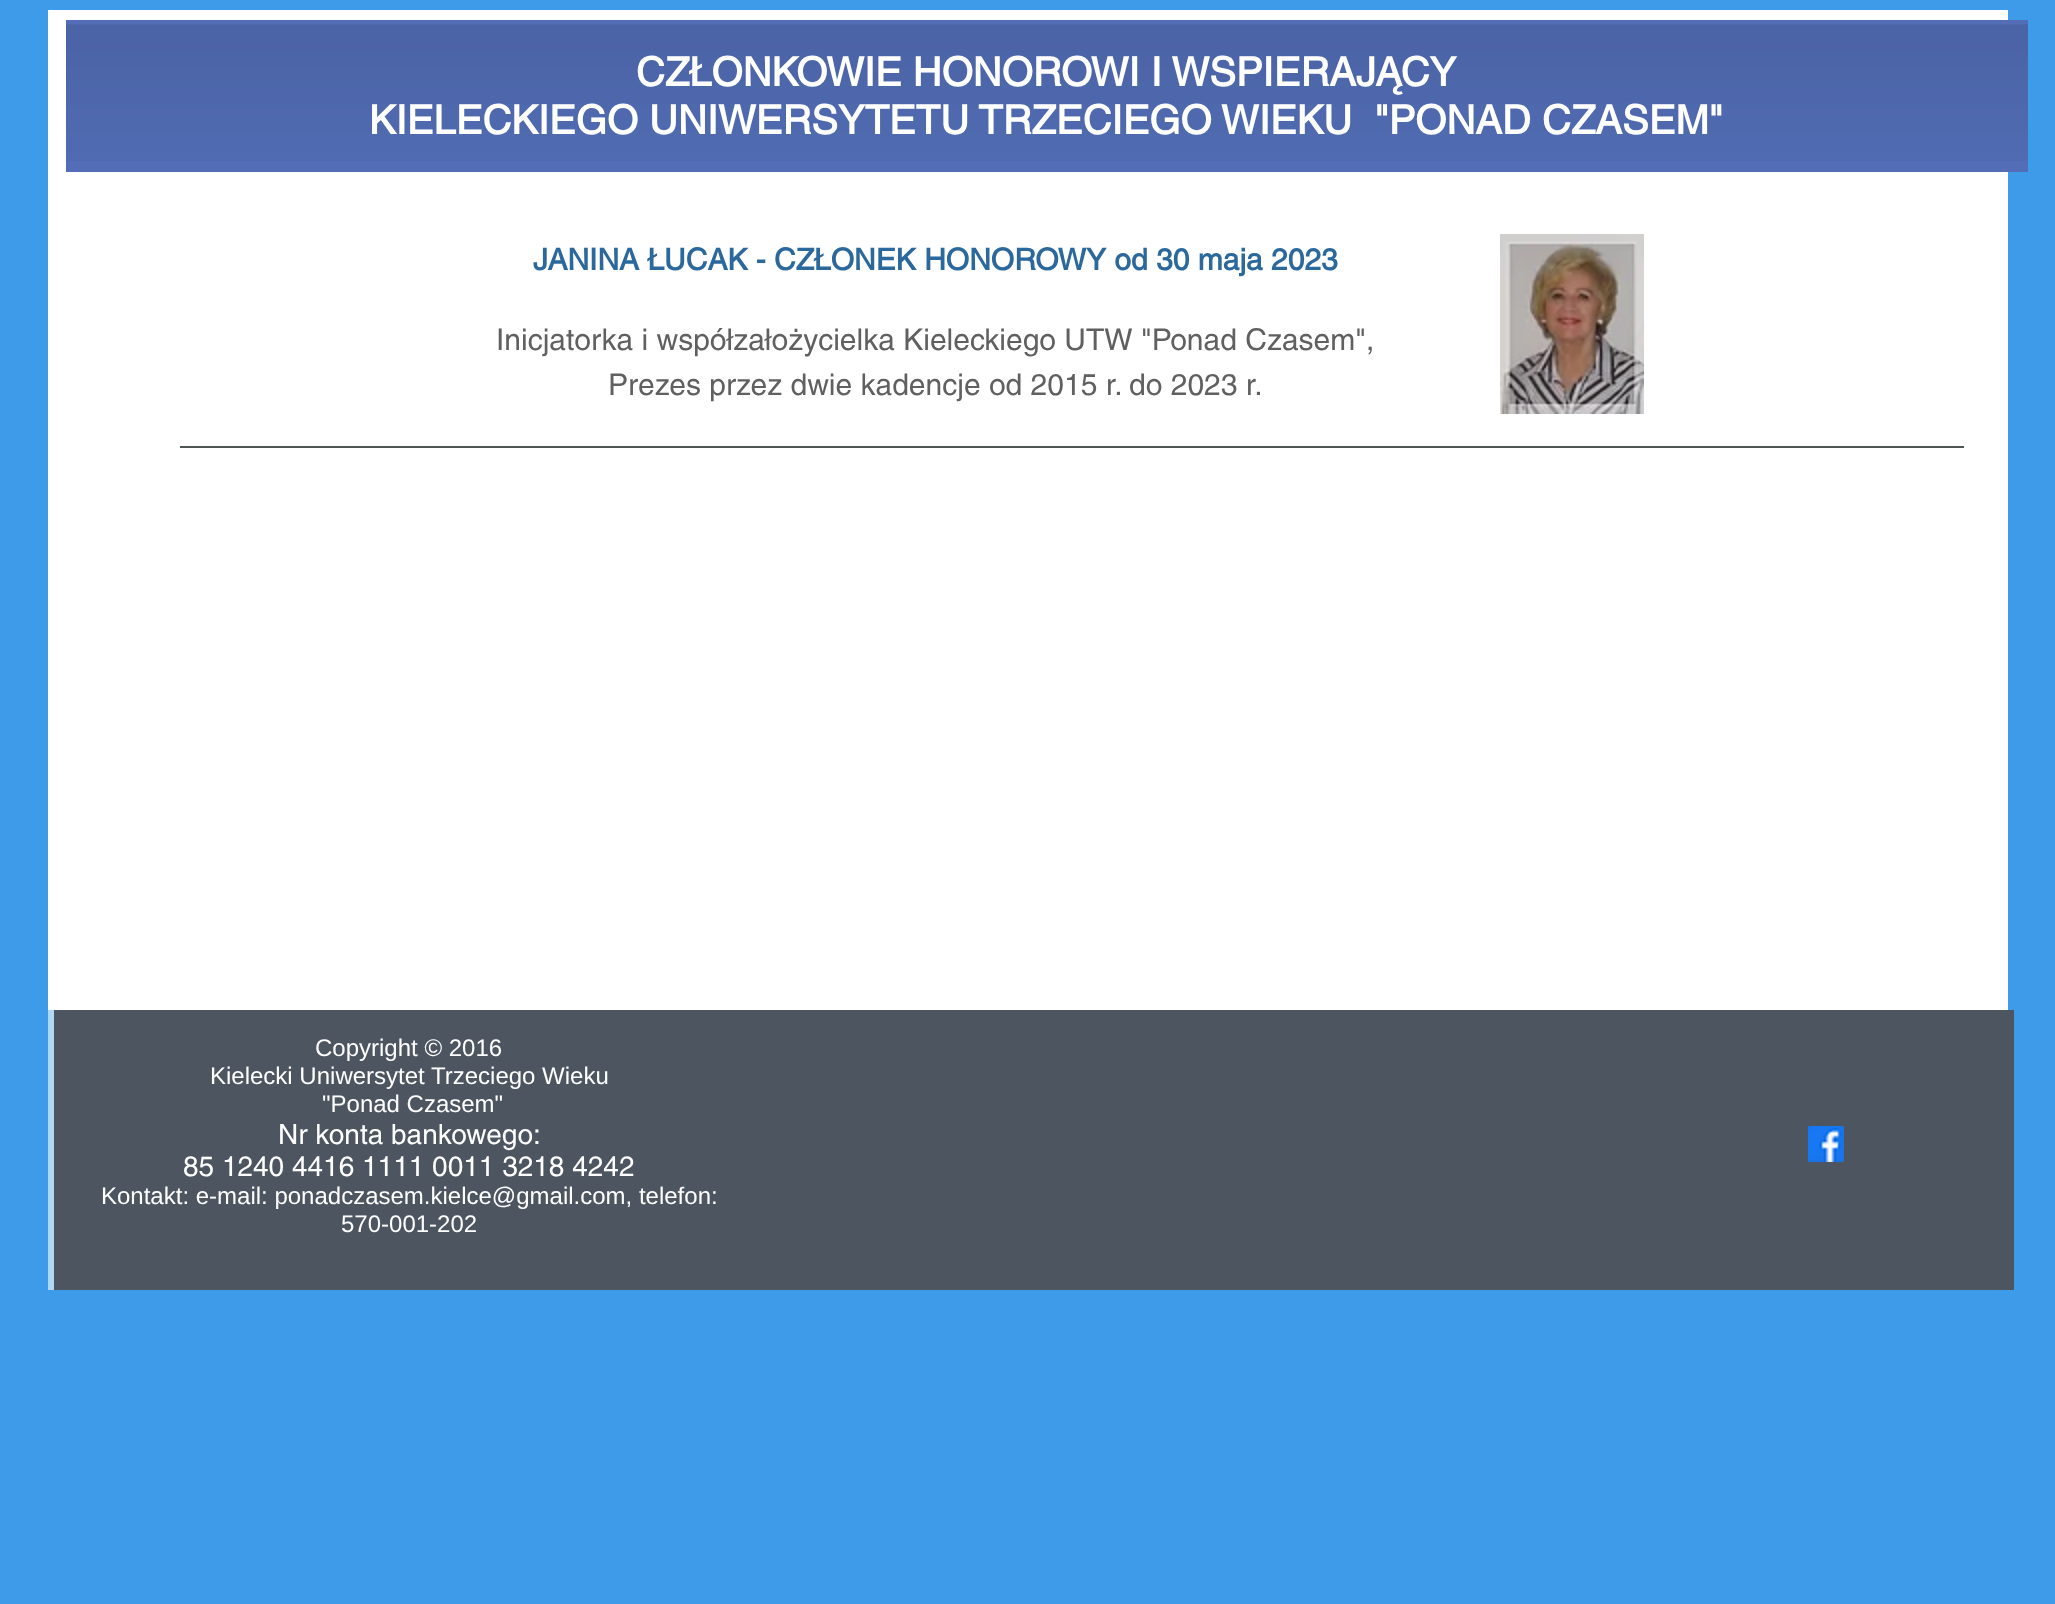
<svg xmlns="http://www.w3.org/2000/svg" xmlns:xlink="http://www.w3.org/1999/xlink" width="2055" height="1604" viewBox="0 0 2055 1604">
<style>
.cls-1{font:bold 40px helvetica;fill:#ffffff}
.cls-2{font:bold 30px helvetica;fill:#2b689c}
.cls-3{font:30px helvetica;fill:#606060}
.cls-4{font:24px Liberation Sans;fill:#ffffff}
.cls-5{font:28px helvetica;fill:#ffffff}
</style>
<rect width="100%" height="100%" fill="#3d9be9"/>
<rect fill="#ffffff" x="48" y="10" width="1960" height="1000"/>
<rect fill="#536eb7" x="66" y="20" width="1962" height="152"/>
<image xlink:href="image0.png" x="66" y="24" width="1962" height="137"/>
<image xlink:href="image1.png" x="1500" y="234" width="144" height="180"/>
<rect fill="#4e5756" x="180" y="446" width="1784" height="2"/>
<rect fill="#b1d7f6" x="48" y="1010" width="6" height="280"/>
<rect fill="#4d5561" x="54" y="1010" width="1960" height="280"/>
<image xlink:href="image2.png" x="1808" y="1126" width="36" height="36"/>
<text class="cls-1" x="636" y="86">CZŁONKOWIE HONOROWI I WSPIERAJĄCY</text>
<text class="cls-1" xml:space="preserve" x="369" y="134">KIELECKIEGO UNIWERSYTETU TRZECIEGO WIEKU  "PONAD CZASEM"</text>
<text class="cls-2" x="533" y="270">JANINA ŁUCAK - CZŁONEK HONOROWY od 30 maja 2023</text>
<text class="cls-3" x="496" y="350">Inicjatorka i współzałożycielka Kieleckiego UTW "Ponad Czasem",</text>
<text class="cls-3" x="608" y="395">Prezes przez dwie kadencje od 2015 r. do 2023 r.</text>
<text class="cls-4" x="315" y="1056">Copyright © 2016</text>
<text class="cls-4" x="210" y="1084">Kielecki Uniwersytet Trzeciego Wieku</text>
<text class="cls-4" x="322" y="1112">"Ponad Czasem"</text>
<text class="cls-5" x="278" y="1144">Nr konta bankowego:</text>
<text class="cls-5" x="183" y="1176">85 1240 4416 1111 0011 3218 4242</text>
<text class="cls-4" x="101" y="1204">Kontakt: e-mail: ponadczasem.kielce@gmail.com, telefon:</text>
<text class="cls-4" x="341" y="1232">570-001-202</text>
</svg>
